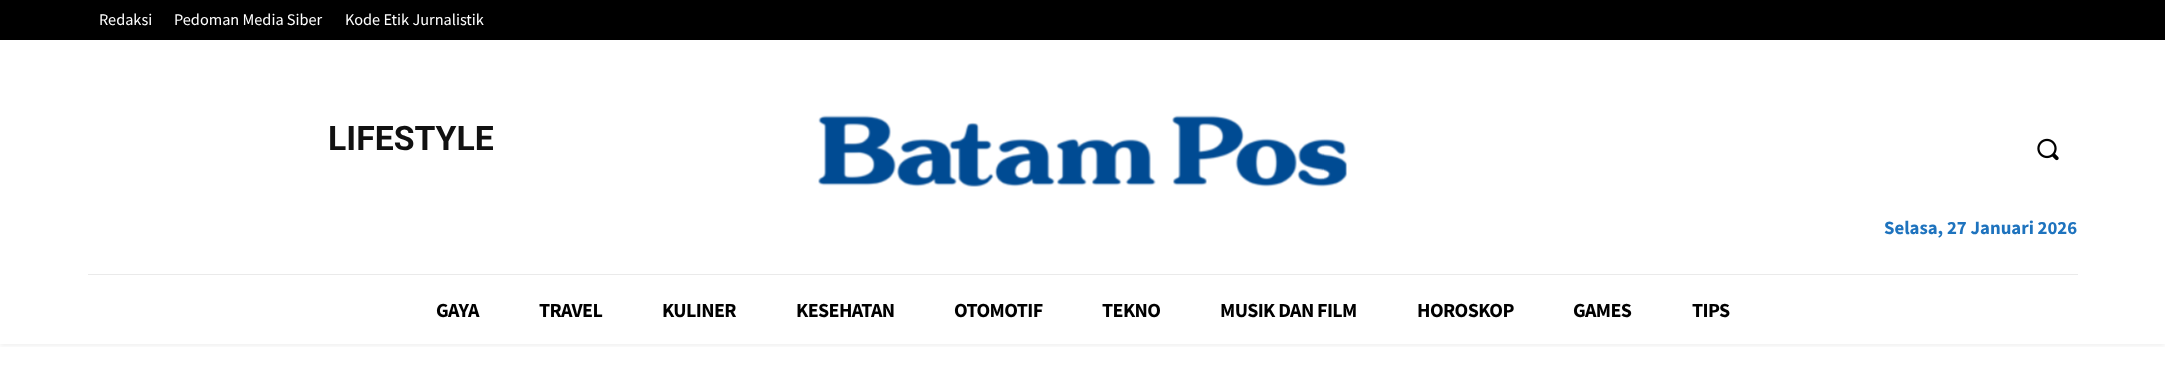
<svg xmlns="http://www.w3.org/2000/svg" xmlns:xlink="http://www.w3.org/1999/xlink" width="2165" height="370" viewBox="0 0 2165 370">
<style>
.cls-1{font:16.25px Source Sans Pro;fill:#ffffff}
.cls-2{font:bold 33.75px Roboto;fill:#111111}
.cls-3{font:bold 18.75px Source Sans Pro;fill:#1e73be}
.cls-4{font:bold 20px Source Sans Pro;letter-spacing:-0.6px;fill:#000000}
</style>
<defs>
<clipPath id="clip1"><rect x="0" y="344" width="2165" height="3"/></clipPath>
</defs>
<rect width="100%" height="100%" fill="#ffffff"/>
<rect fill="#000000" x="0" y="0" width="2165" height="40"/>
<image xlink:href="image0.png" x="818" y="115" width="529" height="72"/>
<image xlink:href="image1.png" x="2037" y="138" width="22" height="23"/>
<rect fill="#eaeaea" x="88" y="274" width="1990" height="1"/>
<g clip-path="url(#clip1)">
<rect fill="#000000" fill-opacity="0.06" filter="blur(2.5px)" x="0" y="220" width="2165" height="126"/>
</g>
<text class="cls-1" x="99" y="25">Redaksi</text>
<text class="cls-1" x="174" y="25">Pedoman Media Siber</text>
<text class="cls-1" x="345" y="25">Kode Etik Jurnalistik</text>
<text class="cls-2" x="328" y="150">LIFESTYLE</text>
<text class="cls-3" x="1884" y="234">Selasa, 27 Januari 2026</text>
<text class="cls-4" x="436" y="317">GAYA</text>
<text class="cls-4" x="539" y="317">TRAVEL</text>
<text class="cls-4" x="662" y="317">KULINER</text>
<text class="cls-4" x="796" y="317">KESEHATAN</text>
<text class="cls-4" x="954" y="317">OTOMOTIF</text>
<text class="cls-4" x="1102" y="317">TEKNO</text>
<text class="cls-4" x="1220" y="317">MUSIK DAN FILM</text>
<text class="cls-4" x="1417" y="317">HOROSKOP</text>
<text class="cls-4" x="1573" y="317">GAMES</text>
<text class="cls-4" x="1692" y="317">TIPS</text>
</svg>
